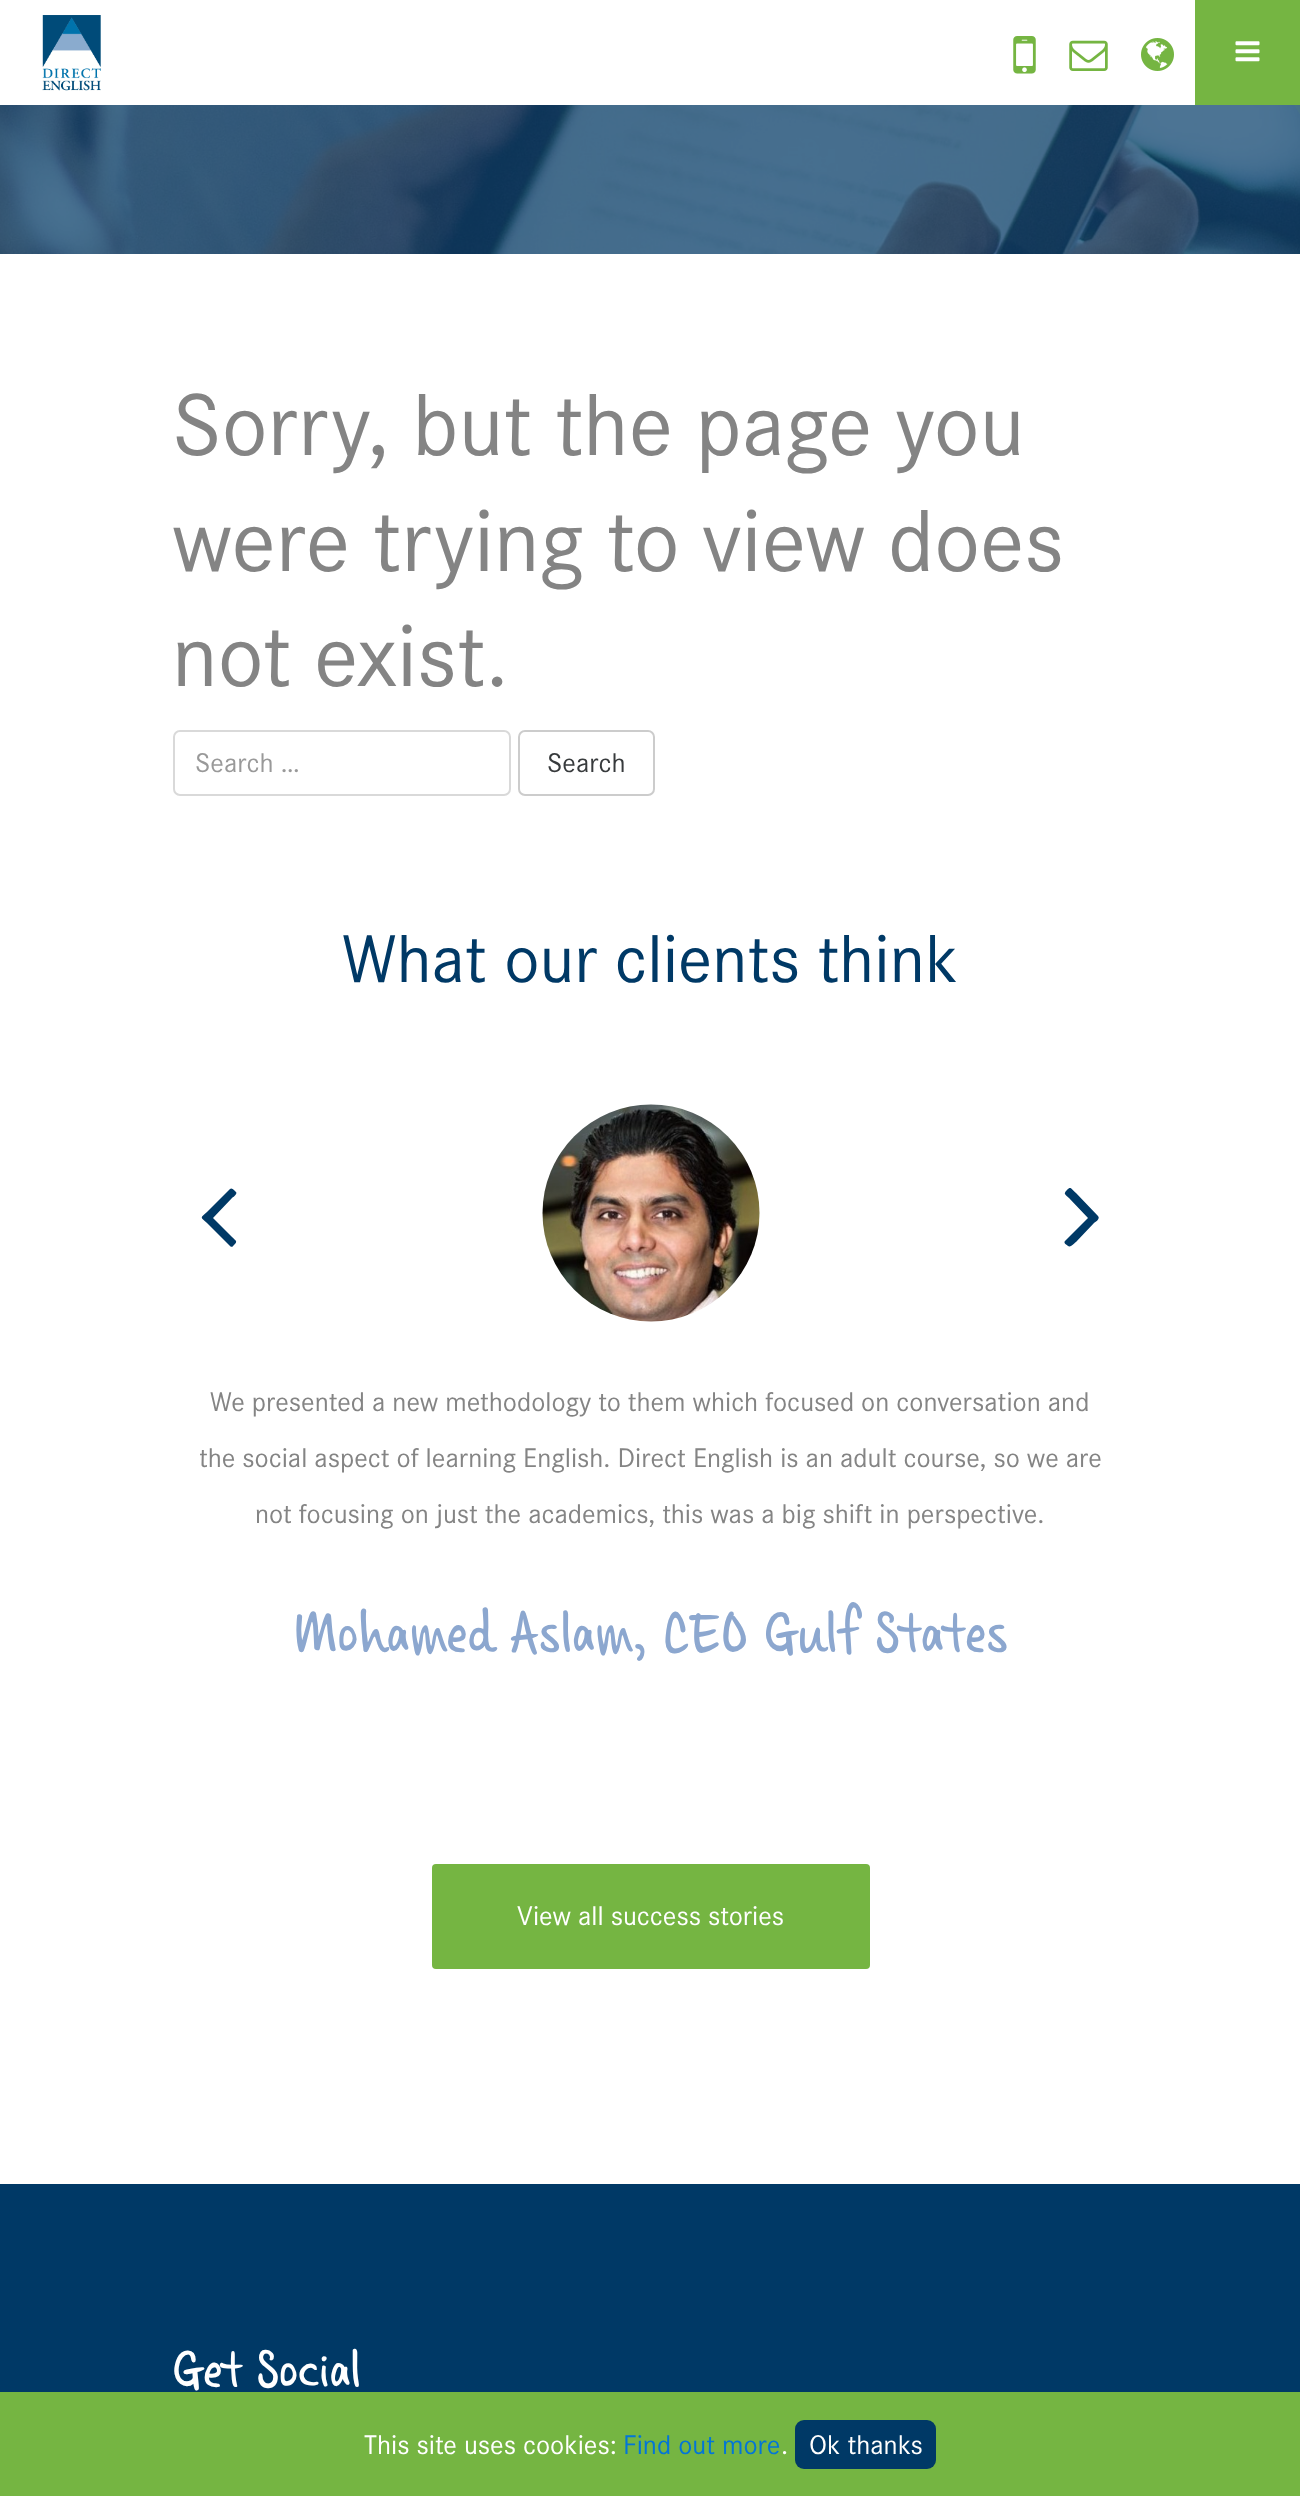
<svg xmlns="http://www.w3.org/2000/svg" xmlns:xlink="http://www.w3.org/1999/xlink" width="1300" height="2496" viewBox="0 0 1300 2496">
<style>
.cls-1{font:91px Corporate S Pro;fill:#848484}
.cls-2{font:28px Corporate S Pro;fill:#999999}
.cls-3{font:28px Corporate S Pro;fill:#373a3c}
.cls-4{font:70px Corporate S Pro;fill:#003966}
.cls-5{font:28px Corporate S Pro;fill:#848484}
.cls-6{font:61.25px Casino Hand;fill:#8ca7cf}
.cls-7{font:28px Corporate S Pro;fill:#ffffff}
.cls-8{font:56px Casino Hand;fill:#ffffff}
.cls-9{font:28px Corporate S Pro;fill:#0275d8}
</style>
<defs>
<clipPath id="clip1"><rect x="200" y="1052" width="903" height="798"/></clipPath>
</defs>
<rect width="100%" height="100%" fill="#ffffff"/>
<image xlink:href="image0.png" x="0" y="105" width="1300" height="149"/>
<path fill="#74b542" fill-opacity="0.07" d="M889-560L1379 244V-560Z"/>
<image xlink:href="image1.png" x="42" y="15" width="59" height="76"/>
<image xlink:href="image2.png" x="1013" y="36" width="23" height="38"/>
<image xlink:href="image3.png" x="1069" y="40" width="39" height="31"/>
<image xlink:href="image4.png" x="1141" y="38" width="33" height="33"/>
<rect fill="#75b542" x="1195" y="0" width="105" height="105"/>
<image xlink:href="image5.png" x="1235" y="41" width="25" height="21"/>
<rect fill="none" stroke="#d9d9d9" stroke-width="2" x="174" y="731" width="336" height="64" rx="6"/>
<rect fill="none" stroke="#cccccc" stroke-width="2" x="519" y="731" width="135" height="64" rx="6"/>
<path fill="#003966" d="M236 1192C238 1194 232 1198 232 1198L213 1218L232 1237C236 1241 238 1241 234 1245C233 1246 232 1248 230 1246L207 1223C200 1217 200 1218 207 1212L230 1189C232 1187 235 1191 236 1192Z"/>
<path fill="#003966" d="M1098 1216C1101 1219 1094 1223 1094 1223L1076 1242C1075 1242 1071 1248 1068 1246C1067 1245 1063 1243 1065 1241L1088 1218L1069 1198C1065 1194 1063 1194 1067 1190C1071 1186 1071 1189 1076 1193Z"/>
<image xlink:href="image6.png" x="542" y="1104" width="218" height="218"/>
<rect fill="#75b542" x="432" y="1864" width="438" height="105" rx="4"/>
<rect fill="#003966" x="0" y="2184" width="1300" height="208"/>
<rect fill="#75b542" x="0" y="2392" width="1300" height="104"/>
<rect fill="#003966" x="795" y="2420" width="141" height="49" rx="9"/>
<text class="cls-1"><tspan x="172" y="455">Sorry, but the page you</tspan><tspan x="172" y="571">were trying to view does</tspan><tspan x="172" y="686">not exist.</tspan></text>
<text class="cls-2" x="195" y="772">Search …</text>
<text class="cls-3" x="547" y="772">Search</text>
<text class="cls-4" x="342" y="982">What our clients think</text>
<text class="cls-5" x="210" y="1411">We presented a new methodology to them which focused on conversation and</text>
<g clip-path="url(#clip1)">
<text class="cls-5" x="199" y="1467">the social aspect of learning English. Direct English is an adult course, so we are</text>
</g>
<text class="cls-5" x="255" y="1523">not focusing on just the academics, this was a big shift in perspective.</text>
<text class="cls-6" x="293" y="1652">Mohamed Aslam, CEO Gulf States</text>
<text class="cls-7" x="517" y="1925">View all success stories</text>
<text class="cls-8" x="172" y="2387">Get Social</text>
<text class="cls-7" x="364" y="2454">This site uses cookies:</text>
<text class="cls-9" x="623" y="2454">Find out more</text>
<text class="cls-7" x="781" y="2454">.</text>
<text class="cls-7" x="809" y="2454">Ok thanks</text>
</svg>
